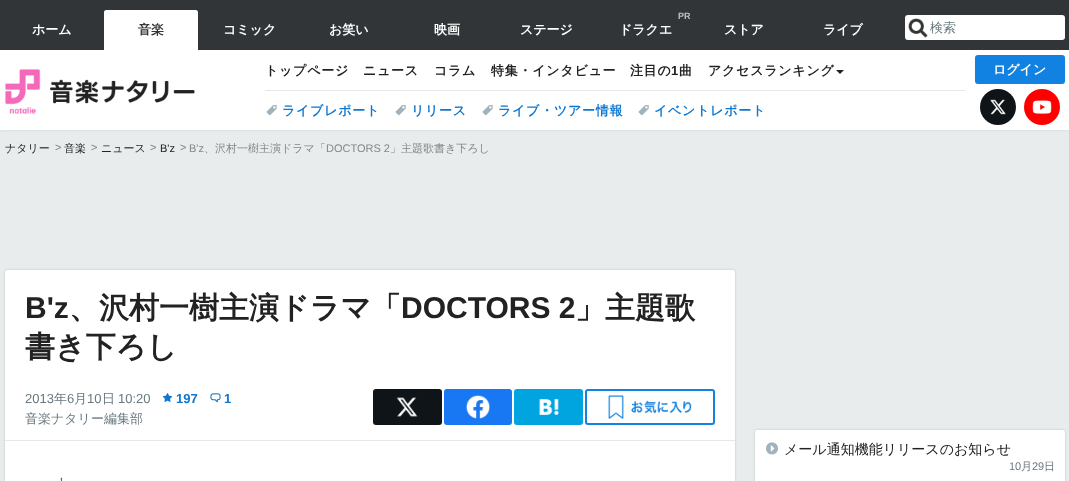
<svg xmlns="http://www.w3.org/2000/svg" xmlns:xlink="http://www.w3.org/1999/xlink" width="1069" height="481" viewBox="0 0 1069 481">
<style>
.cls-1{font:bold 13px WenQuanYi Zen Hei;fill:#ffffff}
.cls-2{font:bold 13px WenQuanYi Zen Hei;fill:#333333}
.cls-3{font:bold 9px Liberation Sans;fill:#bec2c4}
.cls-4{font:500 13px WenQuanYi Zen Hei;fill:#69787f}
.cls-5{font:bold 13px WenQuanYi Zen Hei;letter-spacing:0.75px;fill:#222222}
.cls-6{font:bold 13px Liberation Sans;letter-spacing:0.75px;fill:#222222}
.cls-7{font:bold 13px WenQuanYi Zen Hei;letter-spacing:0.75px;fill:#0e77d0}
.cls-8{font:500 11px WenQuanYi Zen Hei;fill:#222222}
.cls-9{font:11px Liberation Sans;fill:#858788}
.cls-10{font:11px Liberation Sans;fill:#222222}
.cls-11{font:500 11px WenQuanYi Zen Hei;fill:#858788}
.cls-12{font:bold 30px Liberation Sans;fill:#222222}
.cls-13{font:bold 30px WenQuanYi Zen Hei;fill:#222222}
.cls-14{font:13px Liberation Sans;fill:#69787f}
.cls-15{font:bold 13px Liberation Sans;fill:#0e77d0}
.cls-16{font:15px Liberation Sans;fill:#0e77d0}
.cls-17{font:500 14px WenQuanYi Zen Hei;fill:#222222}
.cls-18{font:11px Liberation Sans;fill:#69787f}
.cls-19{font:500 11px WenQuanYi Zen Hei;fill:#69787f}
</style>
<rect width="100%" height="100%" fill="#e8eced"/>
<rect fill="#323537" x="0" y="0" width="1069" height="5"/>
<rect fill="#14191c" fill-opacity="0.1" filter="blur(1.5px)" x="0" y="50" width="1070" height="80"/>
<rect fill="#323537" x="0" y="5" width="1069" height="45"/>
<path fill="#ffffff" d="M106 10H196C197 10 198 11 198 12V50H104V12C104 11 105 10 106 10Z"/>
<rect fill="#ffffff" x="905" y="15" width="160" height="25" rx="3"/>
<image xlink:href="image0.png" x="908" y="18" width="20" height="20"/>
<rect fill="#ffffff" x="0" y="50" width="1069" height="80"/>
<image xlink:href="image1.png" x="5" y="69" width="190" height="45"/>
<path fill="#222222" d="M836 70H844L840 74Z"/>
<rect fill="#e8e8e8" x="265" y="90" width="700" height="1"/>
<image xlink:href="image2.png" x="266" y="105" width="11" height="11"/>
<image xlink:href="image2.png" x="395" y="105" width="11" height="11"/>
<image xlink:href="image2.png" x="482" y="105" width="11" height="11"/>
<image xlink:href="image2.png" x="638" y="105" width="11" height="11"/>
<circle fill="#0f1419" cx="998" cy="107" r="18"/>
<image xlink:href="image3.png" x="990" y="99" width="16" height="16"/>
<circle fill="#ff0000" cx="1042" cy="107" r="18"/>
<image xlink:href="image4.png" x="1032" y="100" width="20" height="14"/>
<rect fill="#1182e1" x="975" y="55" width="90" height="29" rx="3"/>
<rect fill="#14191c" fill-opacity="0.2" filter="blur(1px)" x="5" y="270" width="730" height="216" rx="2"/>
<rect fill="#ffffff" x="5" y="270" width="730" height="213" rx="2"/>
<rect fill="#e8e8e8" x="5" y="440" width="730" height="1"/>
<image xlink:href="image5.png" x="163" y="393" width="9" height="9"/>
<image xlink:href="image6.png" x="210" y="393" width="11" height="10"/>
<rect fill="#0f1419" x="373" y="389" width="69" height="36" rx="3"/>
<image xlink:href="image7.png" x="396" y="397" width="22" height="20"/>
<rect fill="#1877f2" x="444" y="389" width="68" height="36" rx="3"/>
<image xlink:href="image8.png" x="466" y="395" width="24" height="24"/>
<rect fill="#00a4de" x="514" y="389" width="69" height="36" rx="3"/>
<image xlink:href="image9.png" x="539" y="399" width="20" height="16"/>
<rect fill="none" stroke="#1182e1" stroke-width="2" x="586" y="390" width="128" height="34" rx="2"/>
<image xlink:href="image10.png" x="608" y="395" width="84" height="24"/>
<rect fill="#14191c" fill-opacity="0.2" filter="blur(1px)" x="755" y="430" width="310" height="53" rx="2"/>
<rect fill="#ffffff" x="755" y="430" width="310" height="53" rx="2"/>
<image xlink:href="image11.png" x="766" y="442" width="12" height="13"/>
<text class="cls-1" x="32" y="34">ホーム</text>
<text class="cls-2" x="138" y="34">音楽</text>
<text class="cls-1" x="223" y="34">コミック</text>
<text class="cls-1" x="329" y="34">お笑い</text>
<text class="cls-1" x="434" y="34">映画</text>
<text class="cls-1" x="520" y="34">ステージ</text>
<text class="cls-3" x="678" y="19">PR</text>
<text class="cls-1" x="619" y="34">ドラクエ</text>
<text class="cls-1" x="724" y="34">ストア</text>
<text class="cls-1" x="823" y="34">ライブ</text>
<text class="cls-4" x="930" y="32">検索</text>
<text class="cls-5" x="265" y="75">トップページ</text>
<text class="cls-5" x="363" y="75">ニュース</text>
<text class="cls-5" x="434" y="75">コラム</text>
<text class="cls-5" x="491" y="75">特集・インタビュー</text>
<text class="cls-5" x="630" y="75">注目の</text>
<text class="cls-6" x="671" y="75">1</text>
<text class="cls-5" x="679" y="75">曲</text>
<text class="cls-5" x="708" y="75">アクセスランキング</text>
<text class="cls-7" x="282" y="115">ライブレポート</text>
<text class="cls-7" x="411" y="115">リリース</text>
<text class="cls-7" x="498" y="115">ライブ・ツアー情報</text>
<text class="cls-7" x="654" y="115">イベントレポート</text>
<text class="cls-1" x="993" y="74">ログイン</text>
<text class="cls-8" x="5" y="152">ナタリー</text>
<text class="cls-9" x="55" y="151">&gt;</text>
<text class="cls-8" x="64" y="152">音楽</text>
<text class="cls-9" x="91" y="151">&gt;</text>
<text class="cls-8" x="101" y="152">ニュース</text>
<text class="cls-9" x="150" y="151">&gt;</text>
<text class="cls-10" x="160" y="152">B'z</text>
<text class="cls-9" x="180" y="151">&gt;</text>
<text class="cls-9" x="189" y="152">B'z</text>
<text class="cls-11" x="204" y="152">、沢村一樹主演ドラマ「</text>
<text class="cls-9" x="326" y="152">DOCTORS 2</text>
<text class="cls-11" x="390" y="152">」主題歌書き下ろし</text>
<text class="cls-12" x="25" y="318">B'z</text>
<text class="cls-13" x="69" y="318">、沢村一樹主演ドラマ「</text>
<text class="cls-12" x="401" y="318">DOCTORS 2</text>
<text class="cls-13" x="575" y="318">」主題歌</text>
<text class="cls-13" x="25" y="357">書き下ろし</text>
<text class="cls-14" x="25" y="403">2013</text>
<text class="cls-4" x="54" y="403">年</text>
<text class="cls-14" x="67" y="403">6</text>
<text class="cls-4" x="74" y="403">月</text>
<text class="cls-14" x="87" y="403">10</text>
<text class="cls-4" x="102" y="403">日</text>
<text class="cls-14" x="118" y="403">10:20</text>
<text class="cls-15" x="176" y="403">197</text>
<text class="cls-15" x="224" y="403">1</text>
<text class="cls-4" x="25" y="423">音楽ナタリー編集部</text>
<text class="cls-16" x="60" y="488">'</text>
<text class="cls-17" x="784" y="454">メール通知機能リリースのお知らせ</text>
<text class="cls-18" x="1009" y="470">10</text>
<text class="cls-19" x="1021" y="470">月</text>
<text class="cls-18" x="1032" y="470">29</text>
<text class="cls-19" x="1044" y="470">日</text>
</svg>
